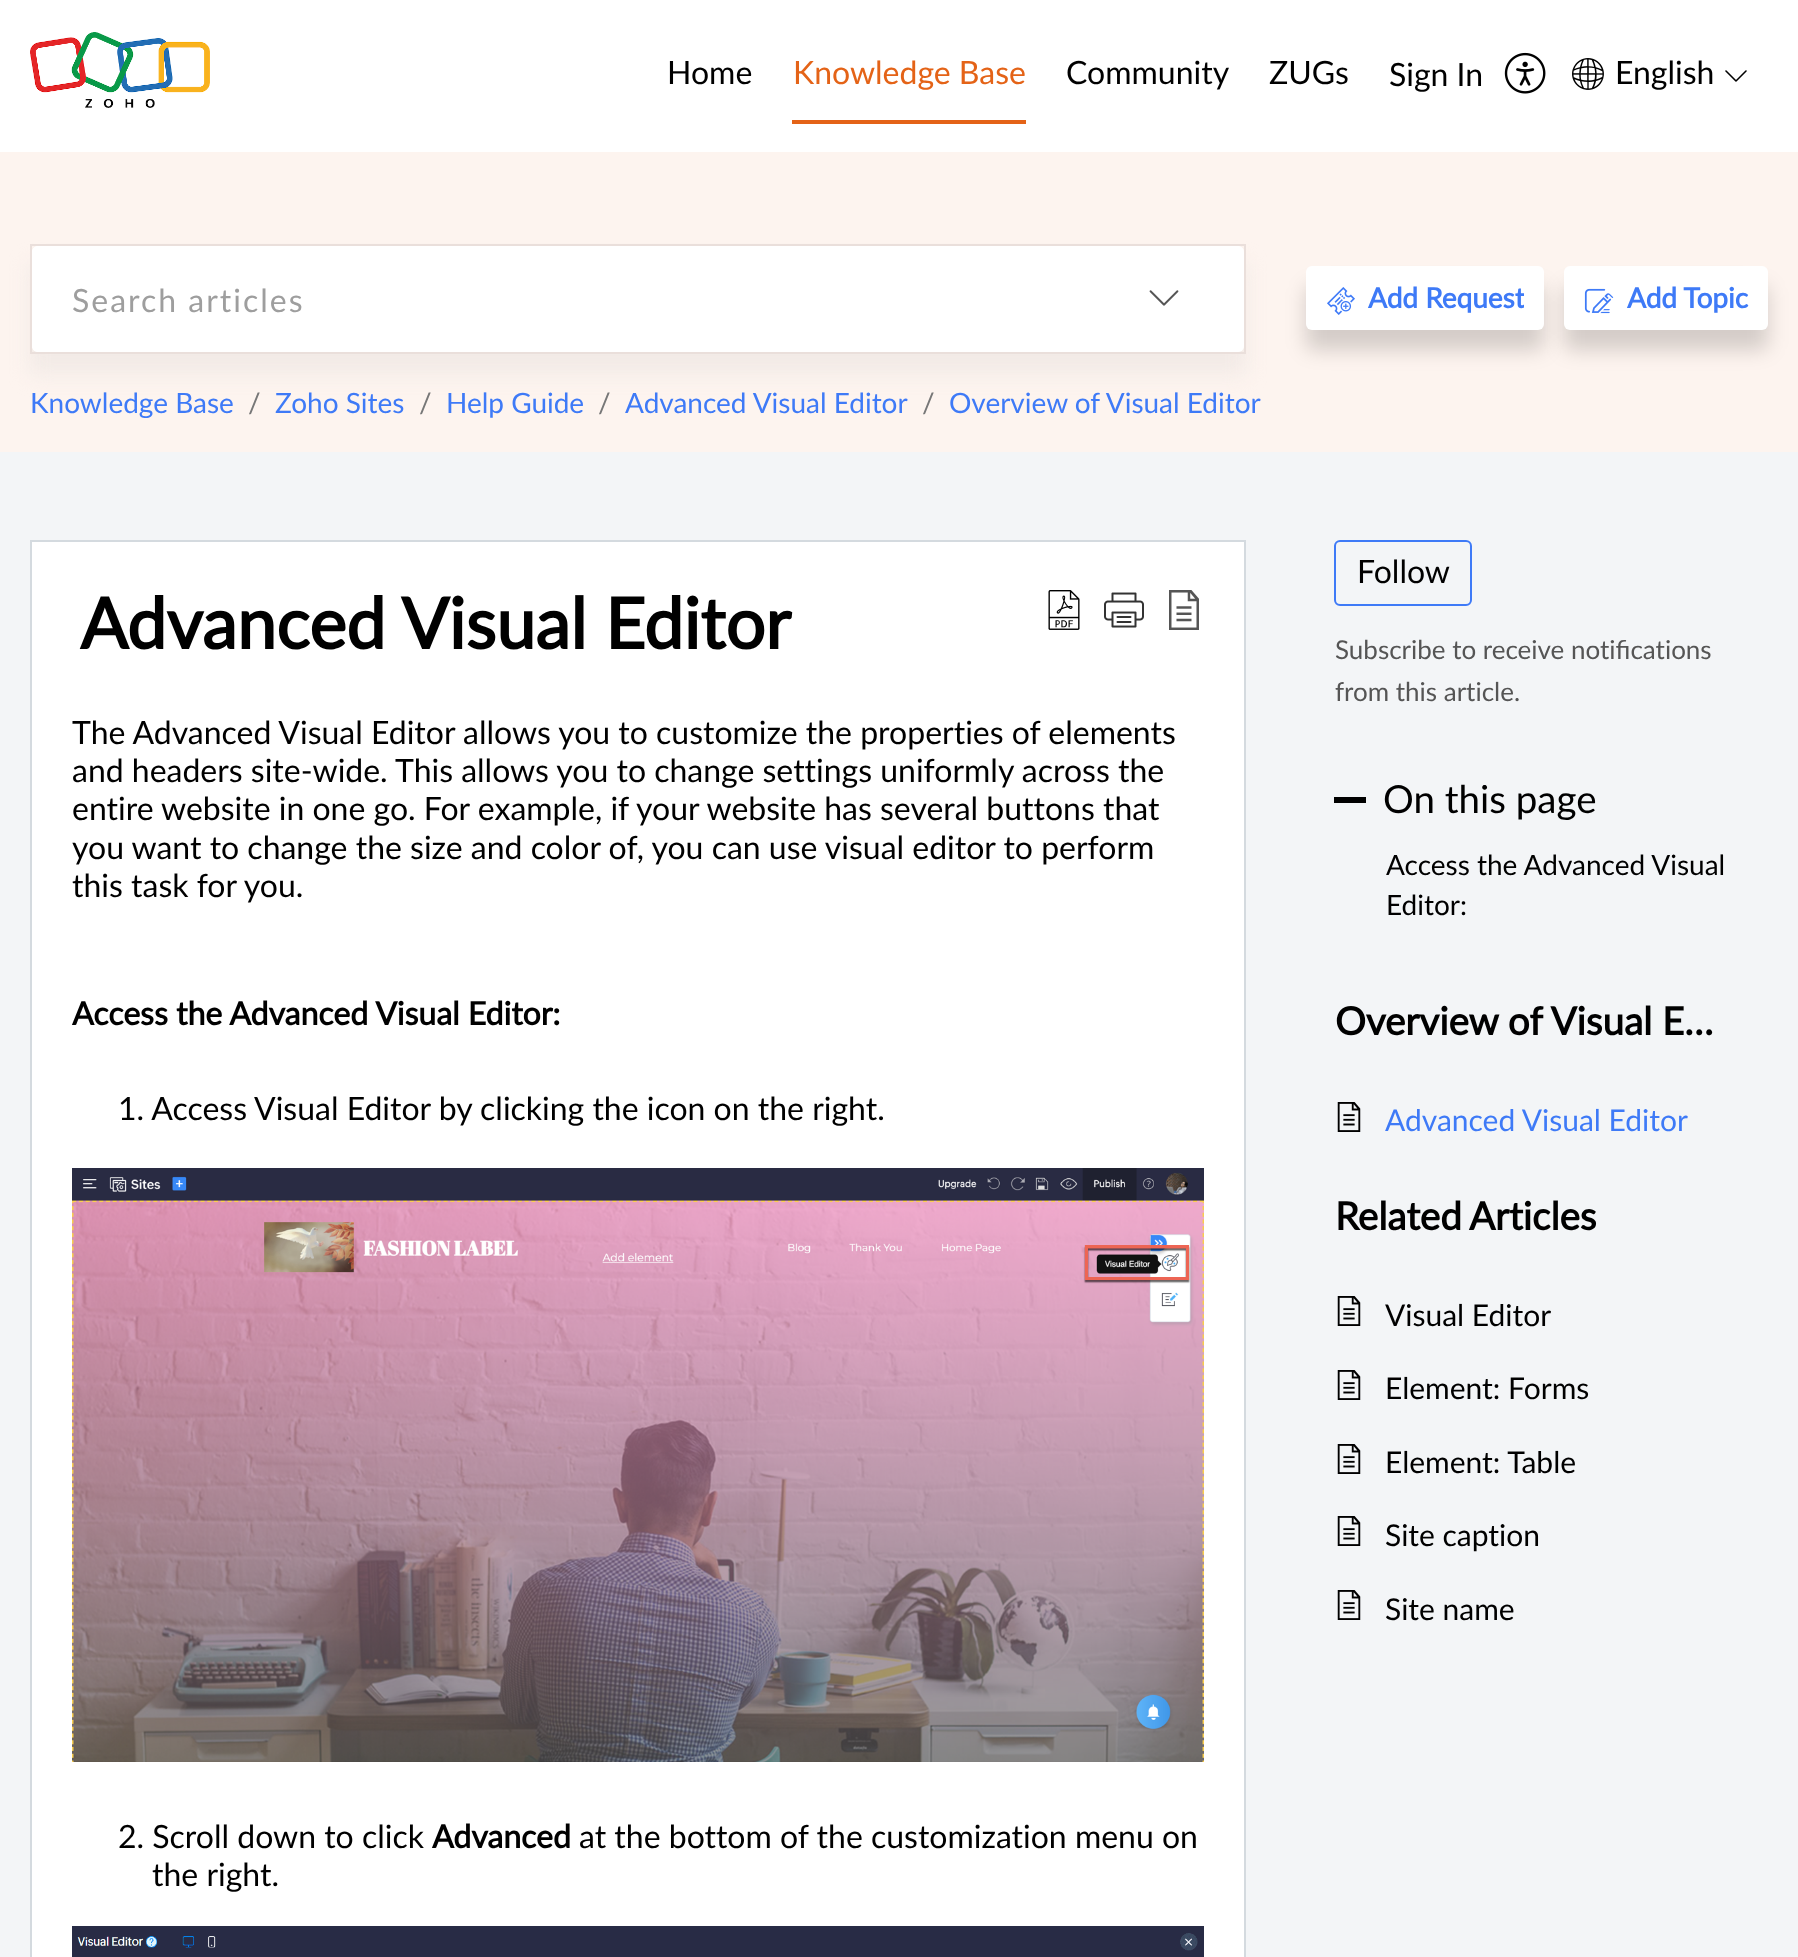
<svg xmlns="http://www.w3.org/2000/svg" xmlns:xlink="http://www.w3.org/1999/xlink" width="1798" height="1957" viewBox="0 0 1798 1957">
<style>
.cls-1{font:32px Lato;fill:#000000}
.cls-2{font:32px Lato;fill:#e46317}
.cls-3{font:32px Lato;letter-spacing:2px;fill:#9e9e9e}
.cls-4{font:bold 28px Lato;fill:#3e7af7}
.cls-5{font:28px Lato;fill:#3e7af7}
.cls-6{font:28px Lato;fill:#777777}
.cls-7{font:bold 70.4px Lato;fill:#000000}
.cls-8{font:bold 32px Lato;fill:#000000}
.cls-9{font:26px Lato;fill:#555555}
.cls-10{font:38.5px Lato;fill:#000000}
.cls-11{font:28px Lato;fill:#000000}
.cls-12{font:bold 38.5px Lato;fill:#000000}
.cls-13{font:30px Lato;fill:#3e7af7}
.cls-14{font:30px Lato;fill:#000000}
</style>
<defs>
<clipPath id="clip1"><rect x="1368" y="278" width="156" height="40"/></clipPath>
</defs>
<rect width="100%" height="100%" fill="#f3f5f7"/>
<rect fill="#ffffff" x="0" y="0" width="1798" height="152"/>
<image xlink:href="image0.png" x="30" y="32" width="180" height="76"/>
<rect fill="#e46317" x="792" y="120" width="234" height="4"/>
<image xlink:href="image1.png" x="1504" y="52" width="42" height="42"/>
<image xlink:href="image2.png" x="1572" y="58" width="32" height="32"/>
<image xlink:href="image3.png" x="1725" y="70" width="22" height="12"/>
<rect fill="#fdf4ef" x="0" y="152" width="1798" height="300"/>
<rect fill="#f0e8e5" fill-opacity="0.84" filter="blur(10px)" x="30" y="264" width="1216" height="110"/>
<rect fill="none" stroke="#eadfdb" stroke-width="2" x="31" y="245" width="1214" height="108"/>
<rect fill="#ffffff" x="32" y="246" width="1212" height="106" rx="6"/>
<rect fill="#ffffff" x="32" y="246" width="1052" height="106" rx="6"/>
<path fill="#ffffff" fill-opacity="0.5" d="M1084 246H1238C1241.5 246 1244 248.5 1244 252V346C1244 349.5 1241.5 352 1238 352H1084Z"/>
<image xlink:href="image4.png" x="1149" y="290" width="30" height="16"/>
<rect fill="#000000" fill-opacity="0.16" filter="blur(10px)" x="1306" y="286" width="238" height="64" rx="6"/>
<rect fill="#ffffff" x="1306" y="266" width="238" height="64" rx="6"/>
<image xlink:href="image5.png" x="1327" y="287" width="28" height="28"/>
<rect fill="#000000" fill-opacity="0.16" filter="blur(10px)" x="1564" y="286" width="204" height="64" rx="6"/>
<rect fill="#ffffff" x="1564" y="266" width="204" height="64" rx="6"/>
<image xlink:href="image6.png" x="1584" y="288" width="30" height="26"/>
<rect fill="#ffffff" stroke="#d4dadf" stroke-width="2" x="31" y="541" width="1214" height="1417"/>
<image xlink:href="image7.png" x="1048" y="590" width="32" height="40"/>
<image xlink:href="image8.png" x="1104" y="592" width="40" height="36"/>
<image xlink:href="image9.png" x="1169" y="590" width="30" height="40"/>
<image xlink:href="image10.png" x="72" y="1168" width="1132" height="594"/>
<image xlink:href="image11.png" x="72" y="1926" width="1132" height="31"/>
<rect fill="none" stroke="#3e7af7" stroke-width="2" x="1335" y="541" width="136" height="64" rx="5"/>
<rect fill="#000000" x="1334" y="797" width="32" height="6"/>
<image xlink:href="image12.png" x="1337" y="1102" width="24" height="30"/>
<image xlink:href="image12.png" x="1337" y="1296" width="24" height="30"/>
<image xlink:href="image12.png" x="1337" y="1370" width="24" height="30"/>
<image xlink:href="image12.png" x="1337" y="1444" width="24" height="30"/>
<image xlink:href="image12.png" x="1337" y="1516" width="24" height="30"/>
<image xlink:href="image12.png" x="1337" y="1590" width="24" height="30"/>
<text class="cls-1" x="667" y="84">Home</text>
<text class="cls-2" x="793" y="84">Knowledge Base</text>
<text class="cls-1" x="1066" y="84">Community</text>
<text class="cls-1" x="1269" y="84">ZUGs</text>
<text class="cls-1" x="1389" y="86">Sign In</text>
<text class="cls-1" x="1615" y="84">English</text>
<text class="cls-3" x="72" y="312">Search articles</text>
<g clip-path="url(#clip1)">
<text class="cls-4" x="1368" y="308">Add Request</text>
</g>
<text class="cls-4" x="1627" y="308">Add Topic</text>
<text class="cls-5" x="30" y="413">Knowledge Base</text>
<text class="cls-6" x="248" y="413">/</text>
<text class="cls-5" x="275" y="413">Zoho Sites</text>
<text class="cls-6" x="419" y="413">/</text>
<text class="cls-5" x="446" y="413">Help Guide</text>
<text class="cls-6" x="598" y="413">/</text>
<text class="cls-5" x="625" y="413">Advanced Visual Editor</text>
<text class="cls-6" x="922" y="413">/</text>
<text class="cls-5" x="949" y="413">Overview of Visual Editor</text>
<text class="cls-7" x="80" y="649">Advanced Visual Editor</text>
<text class="cls-1"><tspan x="72" y="744">The Advanced Visual Editor allows you to customize the properties of elements</tspan><tspan x="72" y="782">and headers site-wide.</tspan></text>
<text class="cls-1" x="395" y="782">This allows you to change settings uniformly across the</text>
<text class="cls-1"><tspan x="72" y="820">entire website in one go. For example, if your website has several buttons that</tspan><tspan x="72" y="859">you want to change the size and color of, you can use visual editor to perform</tspan><tspan x="72" y="897">this task for you.</tspan></text>
<text class="cls-8" x="72" y="1025">Access the Advanced Visual Editor:</text>
<text class="cls-1" x="118" y="1120">1. Access Visual Editor by clicking the icon on the right.</text>
<text class="cls-1" x="118" y="1848">2. Scroll down to click</text>
<text class="cls-8" x="432" y="1848">Advanced</text>
<text class="cls-1" x="579" y="1848">at the bottom of the customization menu on</text>
<text class="cls-1" x="152" y="1886">the right.</text>
<text class="cls-1" x="1357" y="583">Follow</text>
<text class="cls-9"><tspan x="1335" y="659">Subscribe to receive notifications</tspan><tspan x="1335" y="701">from this article.</tspan></text>
<text class="cls-10" x="1383" y="813">On this page</text>
<text class="cls-11"><tspan x="1386" y="875">Access the Advanced Visual</tspan><tspan x="1386" y="915">Editor:</tspan></text>
<text class="cls-12" x="1335" y="1035">Overview of Visual E…</text>
<text class="cls-13" x="1385" y="1131">Advanced Visual Editor</text>
<text class="cls-12" x="1335" y="1230">Related</text>
<text class="cls-12" x="1469" y="1230">Articles</text>
<text class="cls-14" x="1385" y="1326">Visual Editor</text>
<text class="cls-14" x="1385" y="1399">Element: Forms</text>
<text class="cls-14" x="1385" y="1473">Element: Table</text>
<text class="cls-14" x="1385" y="1546">Site caption</text>
<text class="cls-14" x="1385" y="1620">Site name</text>
</svg>
